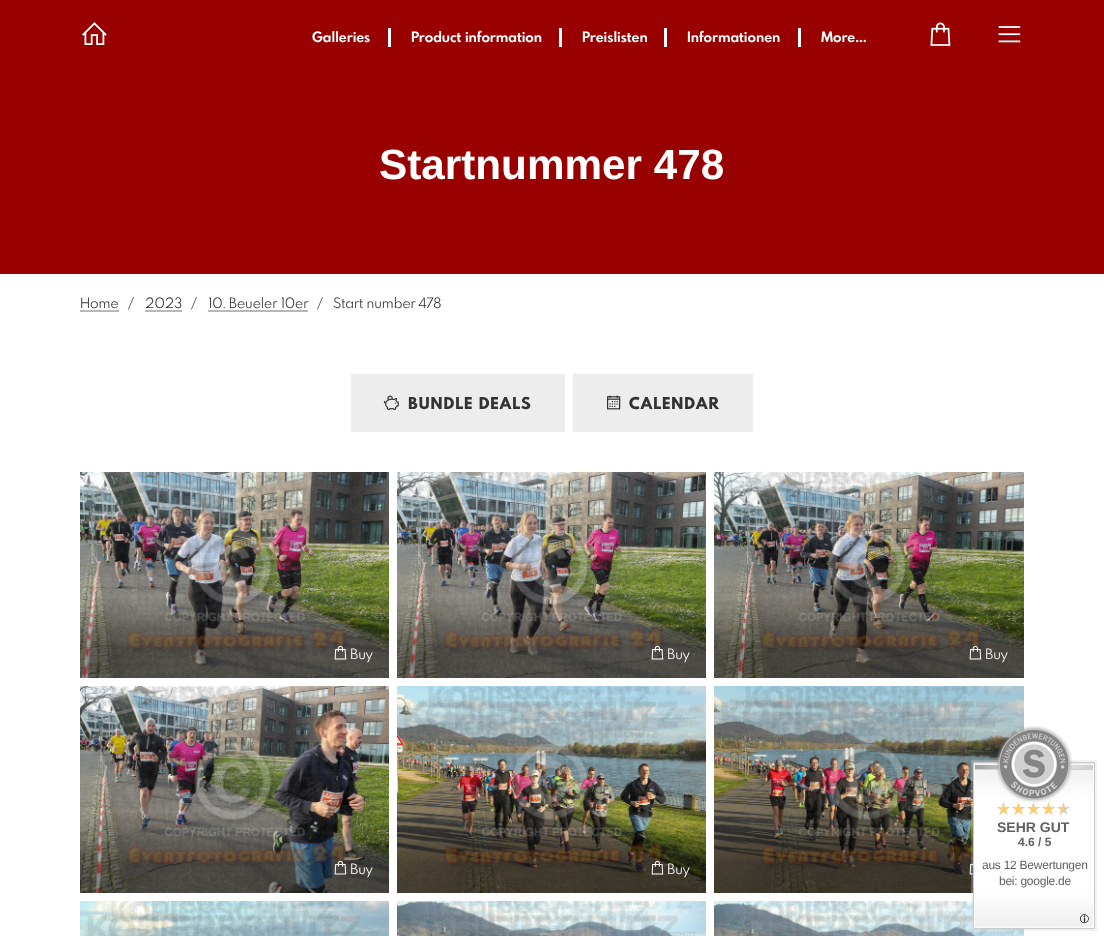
<svg xmlns="http://www.w3.org/2000/svg" xmlns:xlink="http://www.w3.org/1999/xlink" width="1104" height="936" viewBox="0 0 1104 936">
<style>
.cls-1{font:bold 14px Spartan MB;fill:#ffffff}
.cls-2{font:bold 42.25px Liberation Sans;fill:#ffffff}
.cls-3{font:14px Spartan MB;fill:#333333}
.cls-4{font:800 16px Spartan MB;letter-spacing:1px;fill:#333333}
.cls-5{font:14px Spartan MB;fill:#ffffff}
.cls-6{font:bold 14px Liberation Sans;fill:#606060}
.cls-7{font:bold 12px Liberation Sans;fill:#606060}
.cls-8{font:12px Liberation Sans;letter-spacing:-0.25px;fill:#606060}
</style>
<rect width="100%" height="100%" fill="#ffffff"/>
<rect fill="#990000" x="0" y="0" width="1104" height="274"/>
<image xlink:href="image0.png" x="82" y="22" width="25" height="23"/>
<rect fill="#ffffff" x="388" y="28" width="3" height="19"/>
<rect fill="#ffffff" x="559" y="28" width="3" height="19"/>
<rect fill="#ffffff" x="664" y="28" width="3" height="19"/>
<rect fill="#ffffff" x="798" y="28" width="3" height="19"/>
<image xlink:href="image1.png" x="930" y="22" width="21" height="24"/>
<image xlink:href="image2.png" x="998" y="26" width="23" height="17"/>
<rect fill="#b8b8b8" x="80" y="310" width="39" height="2"/>
<rect fill="#b8b8b8" x="145" y="310" width="37" height="2"/>
<rect fill="#b8b8b8" x="208" y="310" width="100" height="2"/>
<rect fill="#ededed" x="351" y="374" width="214" height="58"/>
<image xlink:href="image3.png" x="383" y="395" width="16" height="15"/>
<rect fill="#ededed" x="573" y="374" width="180" height="58"/>
<image xlink:href="image4.png" x="607" y="395" width="14" height="15"/>
<image xlink:href="image5.png" x="80" y="472" width="309" height="206"/>
<image xlink:href="image6.png" x="334" y="645" width="13" height="15"/>
<image xlink:href="image7.png" x="397" y="472" width="309" height="206"/>
<image xlink:href="image8.png" x="651" y="645" width="13" height="15"/>
<image xlink:href="image9.png" x="714" y="472" width="310" height="206"/>
<image xlink:href="image10.png" x="969" y="645" width="13" height="15"/>
<image xlink:href="image11.png" x="80" y="686" width="309" height="207"/>
<image xlink:href="image12.png" x="334" y="860" width="13" height="15"/>
<image xlink:href="image13.png" x="397" y="686" width="309" height="207"/>
<image xlink:href="image14.png" x="651" y="860" width="13" height="15"/>
<image xlink:href="image15.png" x="714" y="686" width="310" height="207"/>
<image xlink:href="image16.png" x="969" y="862" width="4" height="13"/>
<image xlink:href="image17.png" x="80" y="901" width="309" height="35"/>
<image xlink:href="image18.png" x="397" y="901" width="309" height="35"/>
<image xlink:href="image19.png" x="714" y="901" width="310" height="35"/>
<image xlink:href="image20.png" x="971" y="726" width="126" height="205"/>
<image xlink:href="image21.png" x="997" y="802" width="68" height="13"/>
<text class="cls-1" x="312" y="42">Galleries</text>
<text class="cls-1" x="411" y="42">Product information</text>
<text class="cls-1" x="582" y="42">Preislisten</text>
<text class="cls-1" x="687" y="42">Informationen</text>
<text class="cls-1" x="821" y="42">More…</text>
<text class="cls-2" x="379" y="179">Startnummer 478</text>
<text class="cls-3" x="80" y="308">Home</text>
<text class="cls-3" x="128" y="308">/</text>
<text class="cls-3" x="145" y="308">2023</text>
<text class="cls-3" x="191" y="308">/</text>
<text class="cls-3" x="208" y="308">10. Beueler 10er</text>
<text class="cls-3" x="317" y="308">/</text>
<text class="cls-3" x="333" y="308">Start number 478</text>
<text class="cls-4" x="408" y="409">BUNDLE DEALS</text>
<text class="cls-4" x="629" y="409">CALENDAR</text>
<text class="cls-5" x="350" y="659">Buy</text>
<text class="cls-5" x="667" y="659">Buy</text>
<text class="cls-5" x="985" y="659">Buy</text>
<text class="cls-5" x="350" y="874">Buy</text>
<text class="cls-5" x="667" y="874">Buy</text>
<text class="cls-6" x="997" y="832">SEHR GUT</text>
<text class="cls-7" x="1018" y="846">4.6 / 5</text>
<text class="cls-8" x="982" y="869">aus 12 Bewertungen</text>
<text class="cls-8" x="999" y="885">bei: google.de</text>
</svg>
